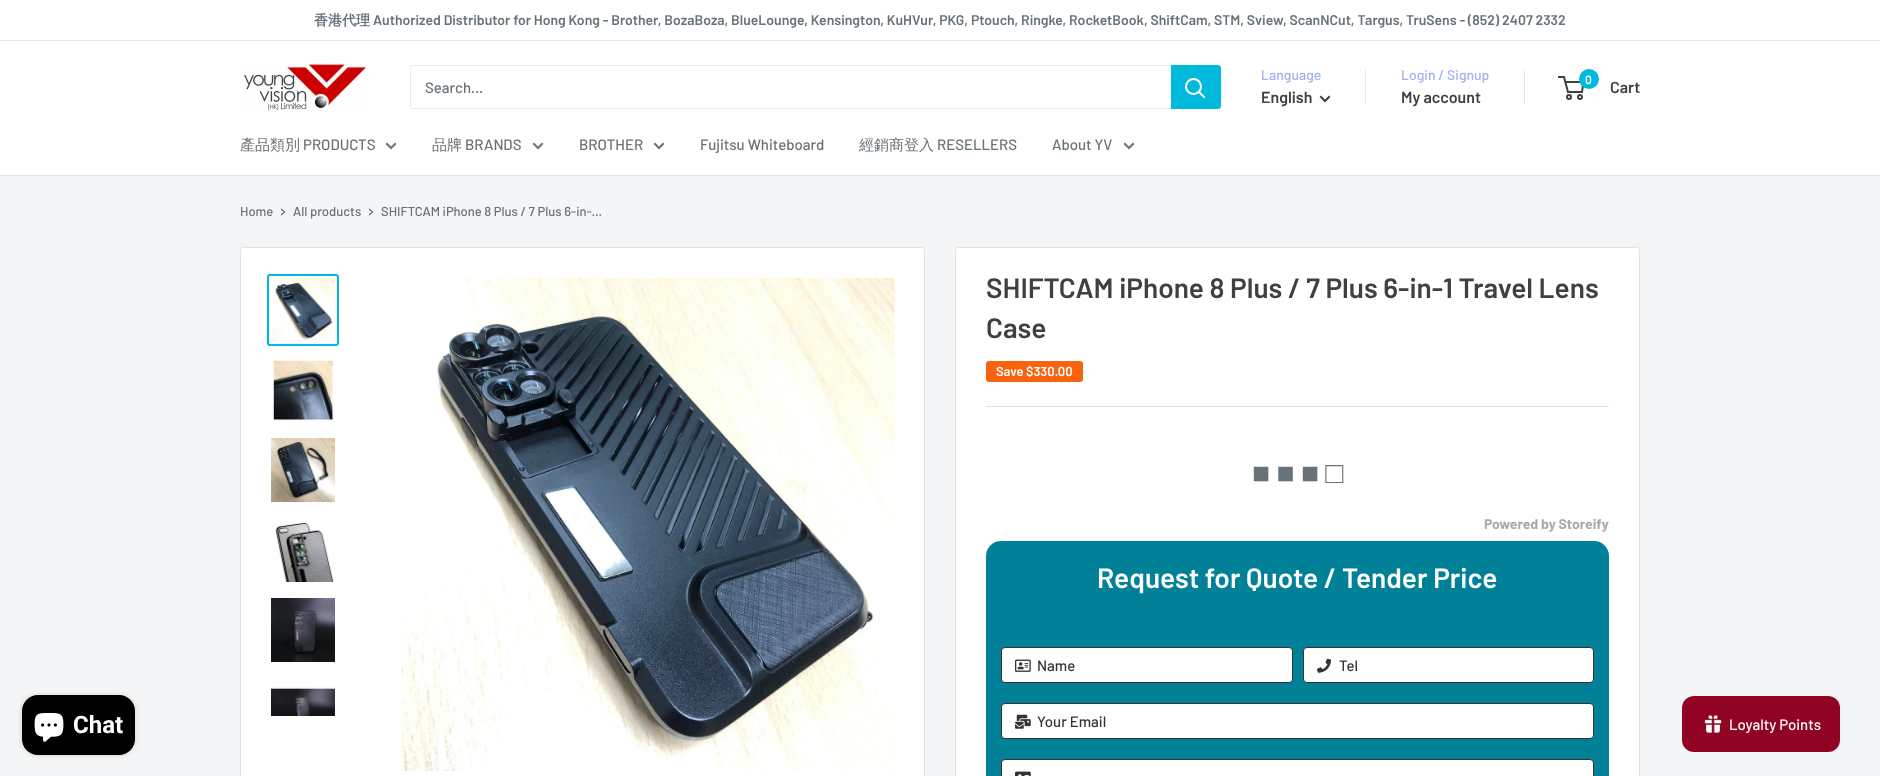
<svg xmlns="http://www.w3.org/2000/svg" xmlns:xlink="http://www.w3.org/1999/xlink" width="1880" height="776" viewBox="0 0 1880 776">
<style>
.cls-1{font:bold 14px WenQuanYi Zen Hei;fill:#677279}
.cls-2{font:600 14px Barlow;fill:#677279}
.cls-3{font:500 15px Barlow;fill:#677279}
.cls-4{font:500 14px Barlow;fill:#a3afef}
.cls-5{font:600 16px Barlow;fill:#3f4041}
.cls-6{font:600 12px Barlow;fill:#ffffff}
.cls-7{font:500 15px WenQuanYi Zen Hei;fill:#677279}
.cls-8{font:bold 24px Roboto;fill:#ffffff}
.cls-9{font:500 13px Barlow;fill:#677279}
.cls-10{font:600 28px Barlow;fill:#3f4041}
.cls-11{font:600 13px Barlow;fill:#ffffff}
.cls-12{font:30px Liberation Sans;fill:#677279}
.cls-13{font:bold 14px Barlow;fill:#a9a9a9}
.cls-14{font:600 28px Barlow;fill:#ffffff}
.cls-15{font:500 15px Barlow;fill:#333333}
.cls-16{font:500 15px Barlow;fill:#ffffff}
</style>
<rect width="100%" height="100%" fill="#f3f5f6"/>
<rect fill="#ffffff" x="0" y="0" width="1880" height="40"/>
<rect fill="#e3e7fa" x="0" y="40" width="1880" height="1"/>
<rect fill="#ffffff" x="0" y="41" width="1880" height="134"/>
<image xlink:href="image0.png" x="244" y="63" width="122" height="48"/>
<path fill="#e3e7fa" d="M411 108C411 109 412 109 413 109H1218C1220 109 1221 108 1221 106V68C1221 67 1221 66 1220 66V99C1220 101 1222 108 1217 108Z"/>
<path fill="#e3e7fa" d="M414 66H1220C1220 65 1219 65 1218 65H413C411 65 410 66 410 68V106C410 107 410 108 411 108V75C411 73 409 66 414 66Z"/>
<path fill="#00badb" d="M1171 65H1218C1219.5 65 1221 66.5 1221 68V106C1221 107.5 1219.5 109 1218 109H1171Z"/>
<path fill="none" stroke="#ffffff" stroke-width="2" stroke-linecap="square" d="M1204 97L1199 92"/>
<circle fill="none" stroke="#ffffff" stroke-width="2" cx="1193.5" cy="86.5" r="7.5"/>
<path fill="none" stroke="#3f4041" stroke-width="2" stroke-linecap="square" d="M1329 97L1325 101L1321 97"/>
<rect fill="#e3e7fa" x="1365" y="70" width="1" height="34"/>
<rect fill="#e3e7fa" x="1524" y="70" width="1" height="34"/>
<circle fill="none" stroke="#3f4041" stroke-width="2" cx="1569" cy="97" r="2"/>
<circle fill="none" stroke="#3f4041" stroke-width="2" cx="1580" cy="97" r="2"/>
<path fill="none" stroke="#3f4041" stroke-width="2" d="M1565.5 82H1583.5L1582 92H1568L1564 77H1558"/>
<circle fill="#00badb" cx="1589" cy="79" r="10"/>
<rect fill="#e1e3e4" x="0" y="175" width="1880" height="1"/>
<path fill="none" stroke="#677279" stroke-width="2" stroke-linecap="square" d="M395 144L391 148L387 144"/>
<path fill="none" stroke="#677279" stroke-width="2" stroke-linecap="square" d="M542 144L538 148L534 144"/>
<path fill="none" stroke="#677279" stroke-width="2" stroke-linecap="square" d="M663 144L659 148L655 144"/>
<path fill="none" stroke="#677279" stroke-width="2" stroke-linecap="square" d="M1133 144L1129 148L1125 144"/>
<rect fill="#000000" fill-opacity="0.15" filter="blur(2.5px)" x="22" y="695" width="113" height="60" rx="16"/>
<rect fill="#000000" x="22" y="695" width="113" height="60" rx="16"/>
<image xlink:href="image1.png" x="34" y="713" width="30" height="29"/>
<path fill="none" stroke="#677279" stroke-width="1.3" stroke-linecap="square" d="M281.5 209.5L284.5 212L281.5 214.5"/>
<path fill="none" stroke="#677279" stroke-width="1.3" stroke-linecap="square" d="M369.5 209.5L372.5 212L369.5 214.5"/>
<rect fill="#ffffff" stroke="#e1e3e4" x="240.5" y="247.5" width="684" height="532" rx="2.5"/>
<rect fill="none" stroke="#00badb" stroke-width="2" x="268" y="275" width="70" height="70" rx="2"/>
<image xlink:href="image2.png" x="271" y="278" width="64" height="64"/>
<image xlink:href="image3.png" x="272" y="359" width="62" height="62"/>
<image xlink:href="image4.png" x="271" y="438" width="64" height="64"/>
<image xlink:href="image5.png" x="275" y="522" width="59" height="60"/>
<image xlink:href="image6.png" x="271" y="598" width="64" height="64"/>
<image xlink:href="image7.png" x="271" y="687" width="64" height="29"/>
<image xlink:href="image8.png" x="401" y="278" width="494" height="493"/>
<rect fill="#ffffff" stroke="#e1e3e4" x="955.5" y="247.5" width="684" height="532" rx="2.5"/>
<rect fill="#f9620e" x="986" y="361" width="97" height="21" rx="3"/>
<rect fill="#e1e3e4" x="986" y="406" width="623" height="1"/>
<rect fill="#008197" x="986" y="541" width="623" height="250" rx="15"/>
<rect fill="#ffffff" stroke="#333333" x="1001.5" y="647.5" width="291" height="35" rx="3.5"/>
<image xlink:href="image9.png" x="1015" y="659" width="16" height="13"/>
<rect fill="#ffffff" stroke="#333333" x="1303.5" y="647.5" width="290" height="35" rx="3.5"/>
<image xlink:href="image10.png" x="1317" y="658" width="14" height="15"/>
<rect fill="#ffffff" stroke="#333333" x="1001.5" y="703.5" width="592" height="35" rx="3.5"/>
<image xlink:href="image11.png" x="1015" y="714" width="16" height="15"/>
<rect fill="#ffffff" stroke="#333333" x="1001.5" y="759.5" width="592" height="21" rx="3.5"/>
<image xlink:href="image12.png" x="1015" y="771" width="16" height="5"/>
<rect fill="#910323" x="1682" y="696" width="158" height="56" rx="12"/>
<image xlink:href="image13.png" x="1704" y="715" width="18" height="18"/>
<text class="cls-1" x="314" y="25">香港代理</text>
<text class="cls-2" x="373" y="25">Authorized Distributor for Hong Kong - Brother, BozaBoza, BlueLounge, Kensington, KuHVur, PKG, Ptouch, Ringke, RocketBook, ShiftCam, STM, Sview, ScanNCut, Targus, TruSens - (852) 2407 2332</text>
<text class="cls-3" x="425" y="93">Search...</text>
<text class="cls-4" x="1261" y="80">Language</text>
<text class="cls-5" x="1261" y="103">English</text>
<text class="cls-4" x="1401" y="80">Login / Signup</text>
<text class="cls-5" x="1401" y="103">My account</text>
<text class="cls-6" x="1585" y="84">0</text>
<text class="cls-5" x="1610" y="93">Cart</text>
<text class="cls-7" x="240" y="150">產品類別</text>
<text class="cls-3" x="303" y="150">PRODUCTS</text>
<text class="cls-7" x="432" y="150">品牌</text>
<text class="cls-3" x="465" y="150">BRANDS</text>
<text class="cls-3" x="579" y="150">BROTHER</text>
<text class="cls-3" x="700" y="150">Fujitsu Whiteboard</text>
<text class="cls-7" x="859" y="150">經銷商登入</text>
<text class="cls-3" x="937" y="150">RESELLERS</text>
<text class="cls-3" x="1052" y="150">About YV</text>
<text class="cls-8" x="73" y="733">Chat</text>
<text class="cls-9" x="240" y="216">Home</text>
<text class="cls-9" x="293" y="216">All products</text>
<text class="cls-9" x="381" y="216">SHIFTCAM iPhone 8 Plus / 7 Plus 6-in-...</text>
<text class="cls-10"><tspan x="986" y="298">SHIFTCAM iPhone 8 Plus / 7 Plus 6-in-1 Travel Lens</tspan><tspan x="986" y="338">Case</tspan></text>
<text class="cls-11" x="996" y="376">Save $330.00</text>
<text class="cls-12" x="1252" y="483" word-spacing="-2">■ ■ ■ □</text>
<text class="cls-13" x="1484" y="529">Powered by Storeify</text>
<text class="cls-14" x="1097" y="588">Request for Quote / Tender Price</text>
<text class="cls-15" x="1037" y="671">Name</text>
<text class="cls-15" x="1339" y="671">Tel</text>
<text class="cls-15" x="1037" y="727">Your Email</text>
<text class="cls-16" x="1729" y="730">Loyalty Points</text>
</svg>
